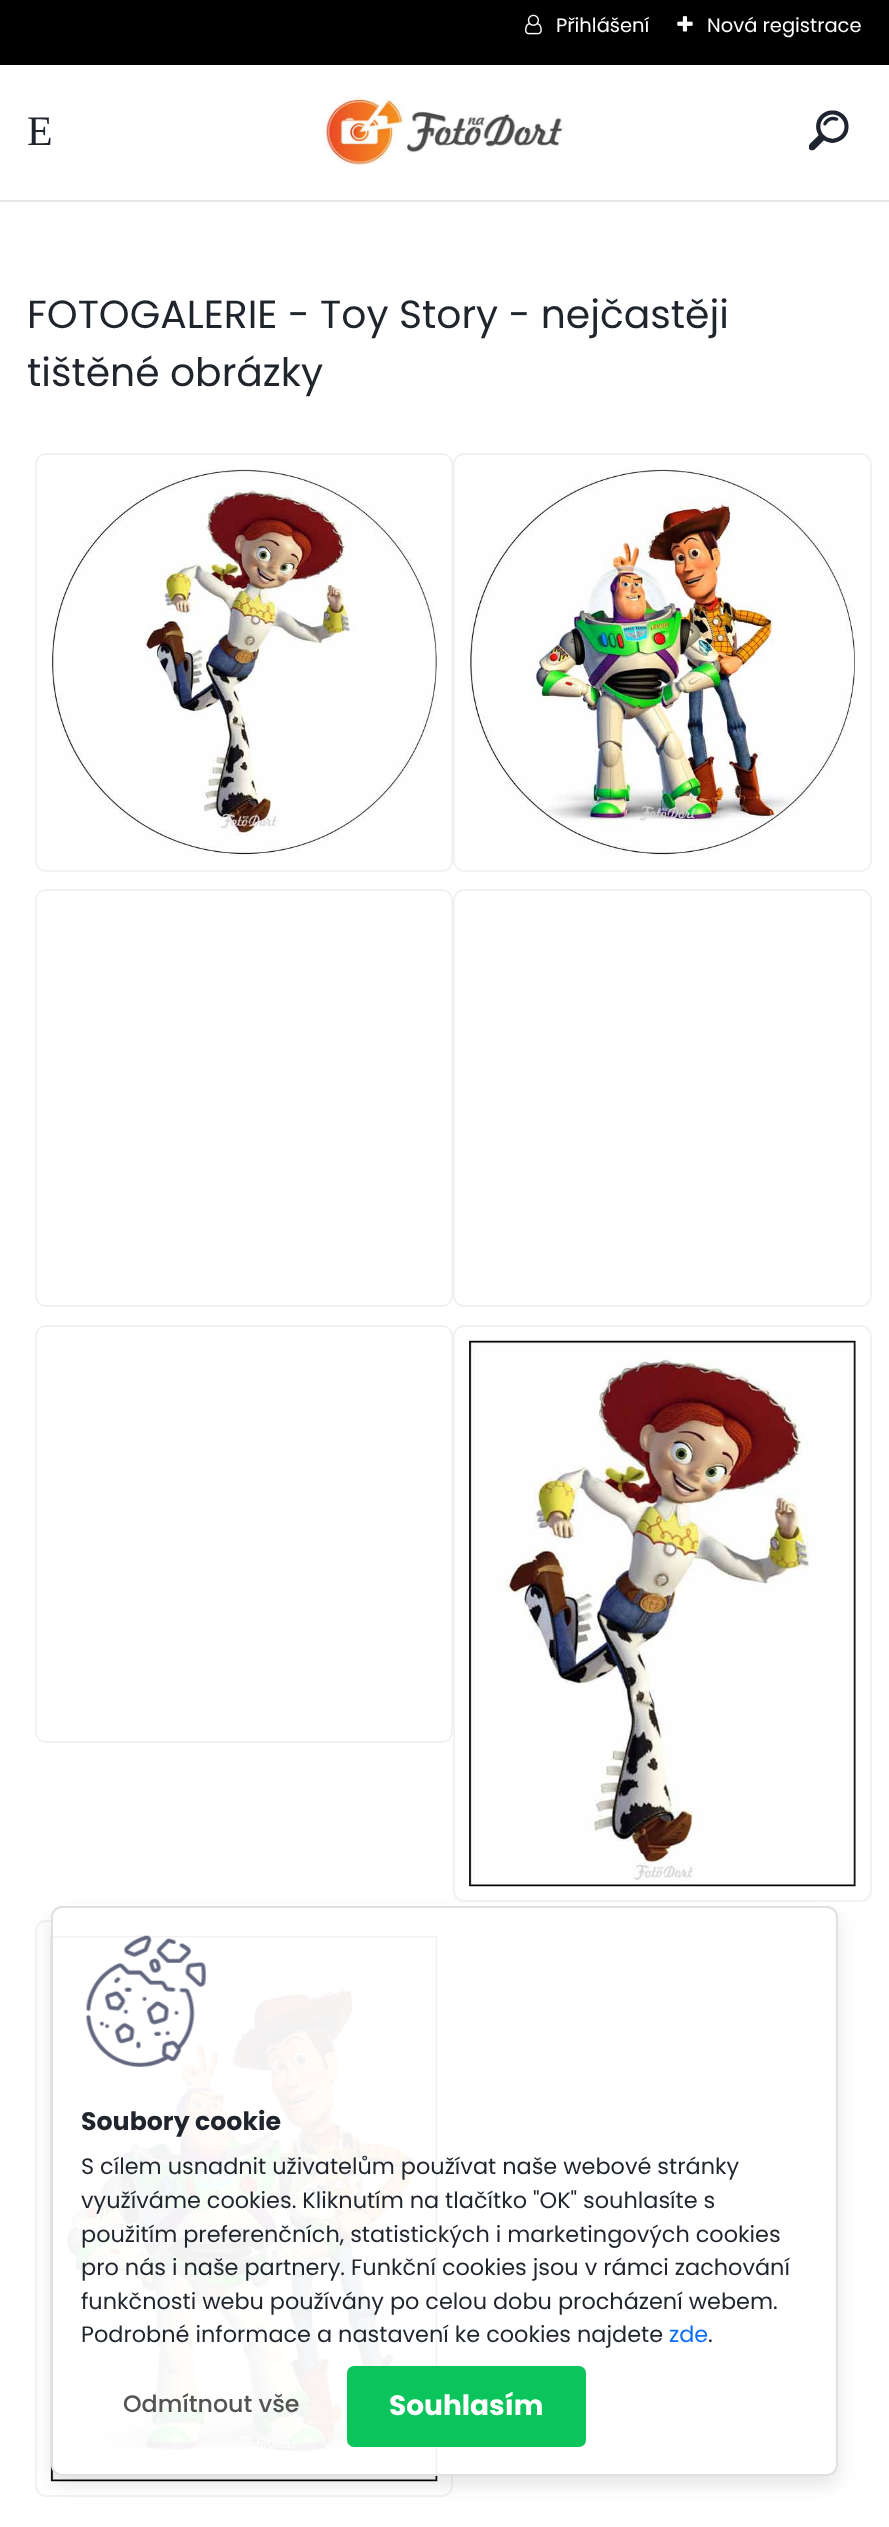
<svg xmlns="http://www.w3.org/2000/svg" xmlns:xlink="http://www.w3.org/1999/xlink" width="889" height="2527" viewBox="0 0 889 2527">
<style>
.cls-1{font:19.5px Poppins;fill:#ffffff}
.cls-2{font:42px Liberation Serif;fill:#1f242d}
.cls-3{font:39.25px Poppins;fill:#1f242d}
.cls-4{font:bold 25.25px Poppins;fill:#1f242d}
.cls-5{font:22.4px Poppins;fill:#1f242d}
.cls-6{font:22.4px Poppins;fill:#0d6efd}
.cls-7{font:500 23.75px Poppins;fill:#535353}
.cls-8{font:bold 28px Poppins;fill:#ffffff}
</style>
<defs>
<clipPath id="clip1"><path d="M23 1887H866V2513H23ZM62 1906H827C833 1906 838 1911 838 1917V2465C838 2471 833 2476 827 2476H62C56 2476 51 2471 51 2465V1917C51 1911 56 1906 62 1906Z" clip-rule="evenodd"/></clipPath>
</defs>
<rect width="100%" height="100%" fill="#ffffff"/>
<rect fill="#000000" x="0" y="0" width="889" height="65"/>
<image xlink:href="image0.png" x="525" y="14" width="17" height="21"/>
<image xlink:href="image1.png" x="677" y="16" width="16" height="16"/>
<rect fill="#e6e6e6" x="0" y="200" width="889" height="2"/>
<image xlink:href="image2.png" x="322" y="96" width="243" height="70"/>
<image xlink:href="image3.png" x="809" y="110" width="40" height="41"/>
<rect fill="none" stroke="#f2f2f2" stroke-width="2" x="36" y="454" width="416" height="417" rx="10"/>
<image xlink:href="image4.png" x="51" y="469" width="387" height="387"/>
<rect fill="none" stroke="#f2f2f2" stroke-width="2" x="454" y="454" width="417" height="417" rx="10"/>
<image xlink:href="image5.png" x="469" y="469" width="387" height="387"/>
<rect fill="none" stroke="#f2f2f2" stroke-width="2" x="36" y="890" width="416" height="416" rx="10"/>
<rect fill="none" stroke="#f2f2f2" stroke-width="2" x="454" y="890" width="417" height="416" rx="10"/>
<rect fill="none" stroke="#f2f2f2" stroke-width="2" x="36" y="1326" width="416" height="416" rx="10"/>
<rect fill="none" stroke="#f2f2f2" stroke-width="2" x="454" y="1326" width="417" height="575" rx="10"/>
<image xlink:href="image6.png" x="469" y="1340" width="387" height="547"/>
<rect fill="none" stroke="#f2f2f2" stroke-width="2" x="36" y="1921" width="416" height="575" rx="10"/>
<image xlink:href="image7.png" x="50" y="1935" width="388" height="547"/>
<g clip-path="url(#clip1)">
<rect fill="#000000" fill-opacity="0.1" filter="blur(9px)" x="51" y="1915" width="787" height="570" rx="11"/>
</g>
<rect fill="#ffffff" fill-opacity="0.95" stroke="#e0e0e0" stroke-width="2" x="52" y="1907" width="785" height="568" rx="10"/>
<image xlink:href="image8.png" x="86" y="1935" width="121" height="132"/>
<rect fill="#0bc45c" x="347" y="2366" width="239" height="81" rx="7"/>
<text class="cls-1" x="556" y="32">Přihlášení</text>
<text class="cls-1" x="707" y="32">Nová registrace</text>
<text class="cls-2" x="27" y="145">E</text>
<text class="cls-3"><tspan x="27" y="328">FOTOGALERIE - Toy Story - nejčastěji</tspan><tspan x="27" y="386">tištěné obrázky</tspan></text>
<text class="cls-4" x="81" y="2130">Soubory cookie</text>
<text class="cls-5"><tspan x="81" y="2174">S cílem usnadnit uživatelům používat naše webové stránky</tspan><tspan x="81" y="2208">využíváme cookies. Kliknutím na tlačítko "OK" souhlasíte s</tspan><tspan x="81" y="2242">použitím preferenčních, statistických i marketingových cookies</tspan><tspan x="81" y="2275">pro nás i naše partnery. Funkční cookies jsou v rámci zachování</tspan><tspan x="81" y="2309">funkčnosti webu používány po celou dobu procházení webem.</tspan><tspan x="81" y="2342">Podrobné informace a nastavení ke cookies najdete</tspan></text>
<text class="cls-6" x="669" y="2342">zde</text>
<text class="cls-5" x="708" y="2342">.</text>
<text class="cls-7" x="123" y="2412">Odmítnout vše</text>
<text class="cls-8" x="389" y="2415">Souhlasím</text>
</svg>
